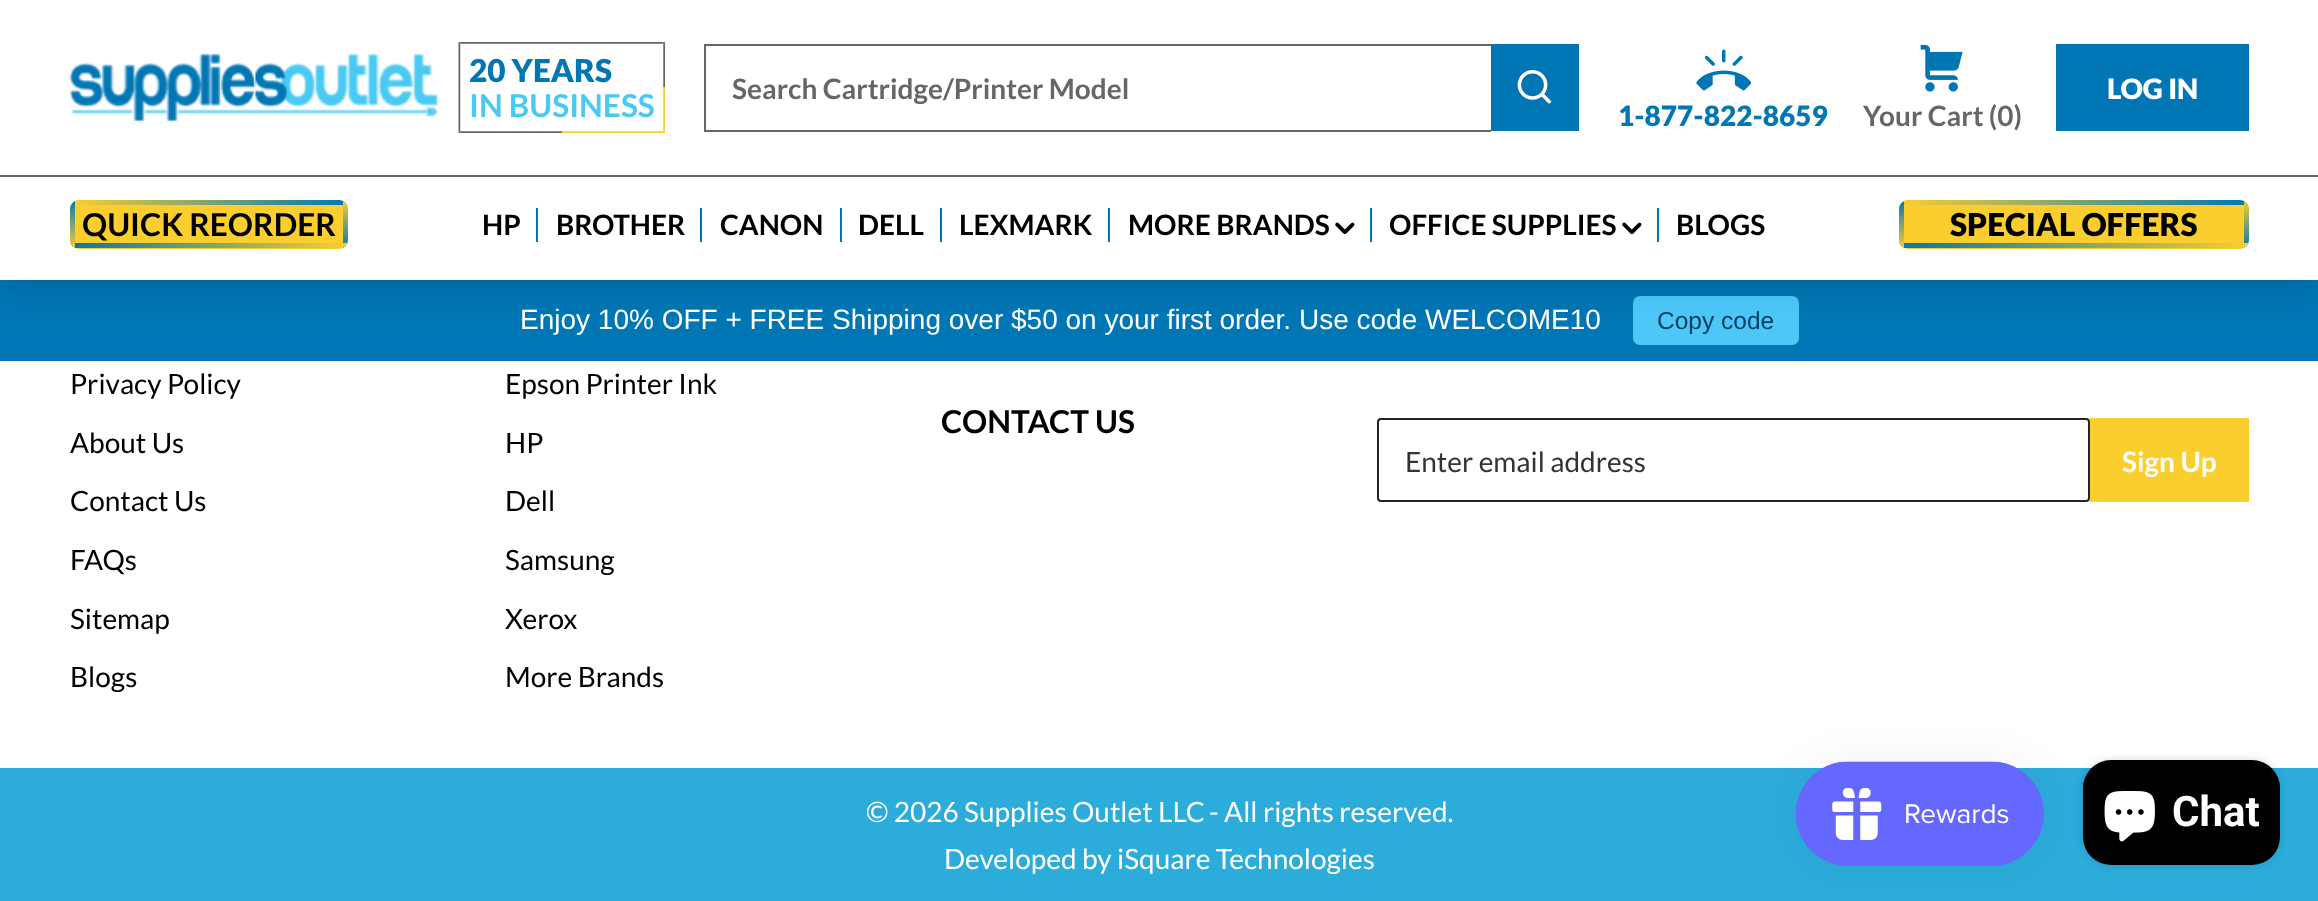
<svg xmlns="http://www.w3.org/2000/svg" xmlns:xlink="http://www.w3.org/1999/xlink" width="2318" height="901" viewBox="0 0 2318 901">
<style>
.cls-1{font:900 31.5px Lato;fill:#0077b4}
.cls-2{font:bold 31.5px Lato;fill:#4ac9f2}
.cls-3{font:bold 28px Lato;fill:#666666}
.cls-4{font:900 28px Lato;fill:#ffffff}
.cls-5{font:900 28px Lato;fill:#0077b4}
.cls-6{font:bold 31.5px Lato;fill:#000000}
.cls-7{font:bold 28px Lato;fill:#000000}
.cls-8{font:900 31.5px Lato;fill:#000000}
.cls-9{font:28px Liberation Sans;fill:#ffffff}
.cls-10{font:24.5px Liberation Sans;fill:#004062}
.cls-11{font:28px Lato;fill:#000000}
.cls-12{font:28px Lato;fill:#333333}
.cls-13{font:bold 28px Lato;fill:#ffffff}
.cls-14{font:28px Lato;fill:#ffffff}
.cls-15{font:bold 42px Roboto;fill:#ffffff}
</style>
<defs>
<clipPath id="clip1"><rect x="70" y="200" width="278" height="49" rx="9"/></clipPath>
<linearGradient id="g1" gradientUnits="userSpaceOnUse" x1="70" y1="202" x2="348" y2="202"><stop offset="0" stop-color="#face2f"/><stop offset="1" stop-color="#0077b4"/></linearGradient>
<linearGradient id="g2" gradientUnits="userSpaceOnUse" x1="346" y1="200" x2="346" y2="249"><stop offset="0" stop-color="#face2f"/><stop offset="1" stop-color="#0077b4"/></linearGradient>
<linearGradient id="g3" gradientUnits="userSpaceOnUse" x1="348" y1="246" x2="70" y2="246"><stop offset="0" stop-color="#face2f"/><stop offset="1" stop-color="#0077b4"/></linearGradient>
<linearGradient id="g4" gradientUnits="userSpaceOnUse" x1="73" y1="249" x2="73" y2="200"><stop offset="0" stop-color="#face2f"/><stop offset="1" stop-color="#0077b4"/></linearGradient>
<clipPath id="clip2"><rect x="1899" y="200" width="350" height="49" rx="9"/></clipPath>
<linearGradient id="g5" gradientUnits="userSpaceOnUse" x1="1899" y1="202" x2="2249" y2="202"><stop offset="0" stop-color="#face2f"/><stop offset="1" stop-color="#0077b4"/></linearGradient>
<linearGradient id="g6" gradientUnits="userSpaceOnUse" x1="2246" y1="200" x2="2246" y2="249"><stop offset="0" stop-color="#face2f"/><stop offset="1" stop-color="#0077b4"/></linearGradient>
<linearGradient id="g7" gradientUnits="userSpaceOnUse" x1="2249" y1="246" x2="1899" y2="246"><stop offset="0" stop-color="#face2f"/><stop offset="1" stop-color="#0077b4"/></linearGradient>
<linearGradient id="g8" gradientUnits="userSpaceOnUse" x1="1901" y1="249" x2="1901" y2="200"><stop offset="0" stop-color="#face2f"/><stop offset="1" stop-color="#0077b4"/></linearGradient>
</defs>
<rect width="100%" height="100%" fill="#ffffff"/>
<rect fill="#0076b4" x="0" y="280" width="2318" height="81"/>
<rect fill="#4dc7f8" x="1633" y="296" width="166" height="49" rx="7"/>
<rect fill="#000000" fill-opacity="0.2" filter="blur(17.5px)" x="0" y="0" width="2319" height="280"/>
<rect fill="#ffffff" x="0" y="0" width="2318" height="280"/>
<image xlink:href="image0.png" x="69" y="53" width="369" height="70"/>
<image xlink:href="image1.png" x="458" y="42" width="207" height="91"/>
<rect fill="#666666" x="704" y="44" width="787" height="2"/>
<rect fill="#666666" x="704" y="130" width="787" height="2"/>
<rect fill="#666666" x="704" y="44" width="2" height="87"/>
<rect fill="#0077b4" x="1491" y="44" width="88" height="87"/>
<image xlink:href="image2.png" x="1517" y="70" width="35" height="34"/>
<rect fill="#0077b4" x="2056" y="44" width="193" height="87"/>
<image xlink:href="image3.png" x="1696" y="49" width="56" height="42"/>
<image xlink:href="image4.png" x="1920" y="44" width="43" height="48"/>
<rect fill="#666666" x="0" y="175" width="2318" height="2"/>
<rect fill="#face2f" x="70" y="200" width="278" height="49" rx="9"/>
<g clip-path="url(#clip1)">
<rect fill="url(#g1)" x="70" y="200" width="278" height="5"/>
<rect fill="url(#g2)" x="343" y="200" width="5" height="49"/>
<rect fill="url(#g3)" x="70" y="243" width="278" height="5"/>
<rect fill="url(#g4)" x="70" y="200" width="5" height="49"/>
</g>
<rect fill="#0077b4" x="536" y="208" width="2" height="34"/>
<rect fill="#0077b4" x="700" y="208" width="2" height="34"/>
<rect fill="#0077b4" x="840" y="208" width="2" height="34"/>
<rect fill="#0077b4" x="940" y="208" width="2" height="34"/>
<rect fill="#0077b4" x="1108" y="208" width="2" height="34"/>
<image xlink:href="image5.png" x="1335" y="222" width="20" height="13"/>
<rect fill="#0077b4" x="1370" y="208" width="2" height="34"/>
<image xlink:href="image5.png" x="1622" y="222" width="20" height="13"/>
<rect fill="#0077b4" x="1657" y="208" width="2" height="34"/>
<rect fill="#face2f" x="1899" y="200" width="350" height="49" rx="9"/>
<g clip-path="url(#clip2)">
<rect fill="url(#g5)" x="1899" y="200" width="350" height="5"/>
<rect fill="url(#g6)" x="2244" y="200" width="5" height="49"/>
<rect fill="url(#g7)" x="1899" y="243" width="350" height="5"/>
<rect fill="url(#g8)" x="1899" y="200" width="5" height="49"/>
</g>
<rect fill="none" stroke="#242424" stroke-width="2" x="1378" y="419" width="711" height="82" rx="3"/>
<rect fill="#face2f" x="2090" y="418" width="159" height="84"/>
<rect fill="#2cacdb" x="0" y="768" width="2318" height="133"/>
<rect fill="#000000" fill-opacity="0.15" filter="blur(4.5px)" x="2083" y="760" width="197" height="105" rx="28"/>
<rect fill="#000000" x="2083" y="760" width="197" height="105" rx="28"/>
<image xlink:href="image7.png" x="2104" y="791" width="51" height="51"/>
<rect fill="#000000" fill-opacity="0.05" filter="blur(22px)" x="1796" y="761" width="248" height="105" rx="52.5"/>
<image xlink:href="image6.png" x="1795" y="761" width="249" height="105"/>
<text class="cls-1" x="469" y="82">20 YEARS</text>
<text class="cls-2" x="469" y="117">IN BUSINESS</text>
<text class="cls-3" x="732" y="99">Search Cartridge/Printer Model</text>
<text class="cls-4" x="2107" y="99">LOG IN</text>
<text class="cls-5" x="1618" y="126">1-877-822-8659</text>
<text class="cls-3" x="1863" y="126">Your Cart (0)</text>
<text class="cls-6" x="82" y="236">QUICK REORDER</text>
<text class="cls-7" x="482" y="235">HP</text>
<text class="cls-7" x="556" y="235">BROTHER</text>
<text class="cls-7" x="720" y="235">CANON</text>
<text class="cls-7" x="858" y="235">DELL</text>
<text class="cls-7" x="959" y="235">LEXMARK</text>
<text class="cls-7" x="1128" y="235">MORE BRANDS</text>
<text class="cls-7" x="1389" y="235">OFFICE SUPPLIES</text>
<text class="cls-7" x="1676" y="235">BLOGS</text>
<text class="cls-8" x="1950" y="236">SPECIAL OFFERS</text>
<text class="cls-9" x="520" y="329">Enjoy 10% OFF + FREE Shipping over $50 on your first order. Use code WELCOME10</text>
<text class="cls-10" x="1657" y="329">Copy code</text>
<text class="cls-11" x="70" y="394">Privacy Policy</text>
<text class="cls-11" x="70" y="453">About Us</text>
<text class="cls-11" x="70" y="511">Contact Us</text>
<text class="cls-11" x="70" y="570">FAQs</text>
<text class="cls-11" x="70" y="629">Sitemap</text>
<text class="cls-11" x="70" y="687">Blogs</text>
<text class="cls-11" x="505" y="394">Epson Printer Ink</text>
<text class="cls-11" x="505" y="453">HP</text>
<text class="cls-11" x="505" y="511">Dell</text>
<text class="cls-11" x="505" y="570">Samsung</text>
<text class="cls-11" x="505" y="629">Xerox</text>
<text class="cls-11" x="505" y="687">More Brands</text>
<text class="cls-6" x="941" y="433">CONTACT US</text>
<text class="cls-12" x="1405" y="472">Enter email address</text>
<text class="cls-13" x="2122" y="472">Sign Up</text>
<text class="cls-14" x="866" y="822">© 2026 Supplies Outlet LLC</text>
<text class="cls-14" x="1209" y="822">- All rights reserved.</text>
<text class="cls-14" x="944" y="869">Developed by iSquare Technologies</text>
<text class="cls-15" x="2172" y="826">Chat</text>
</svg>
